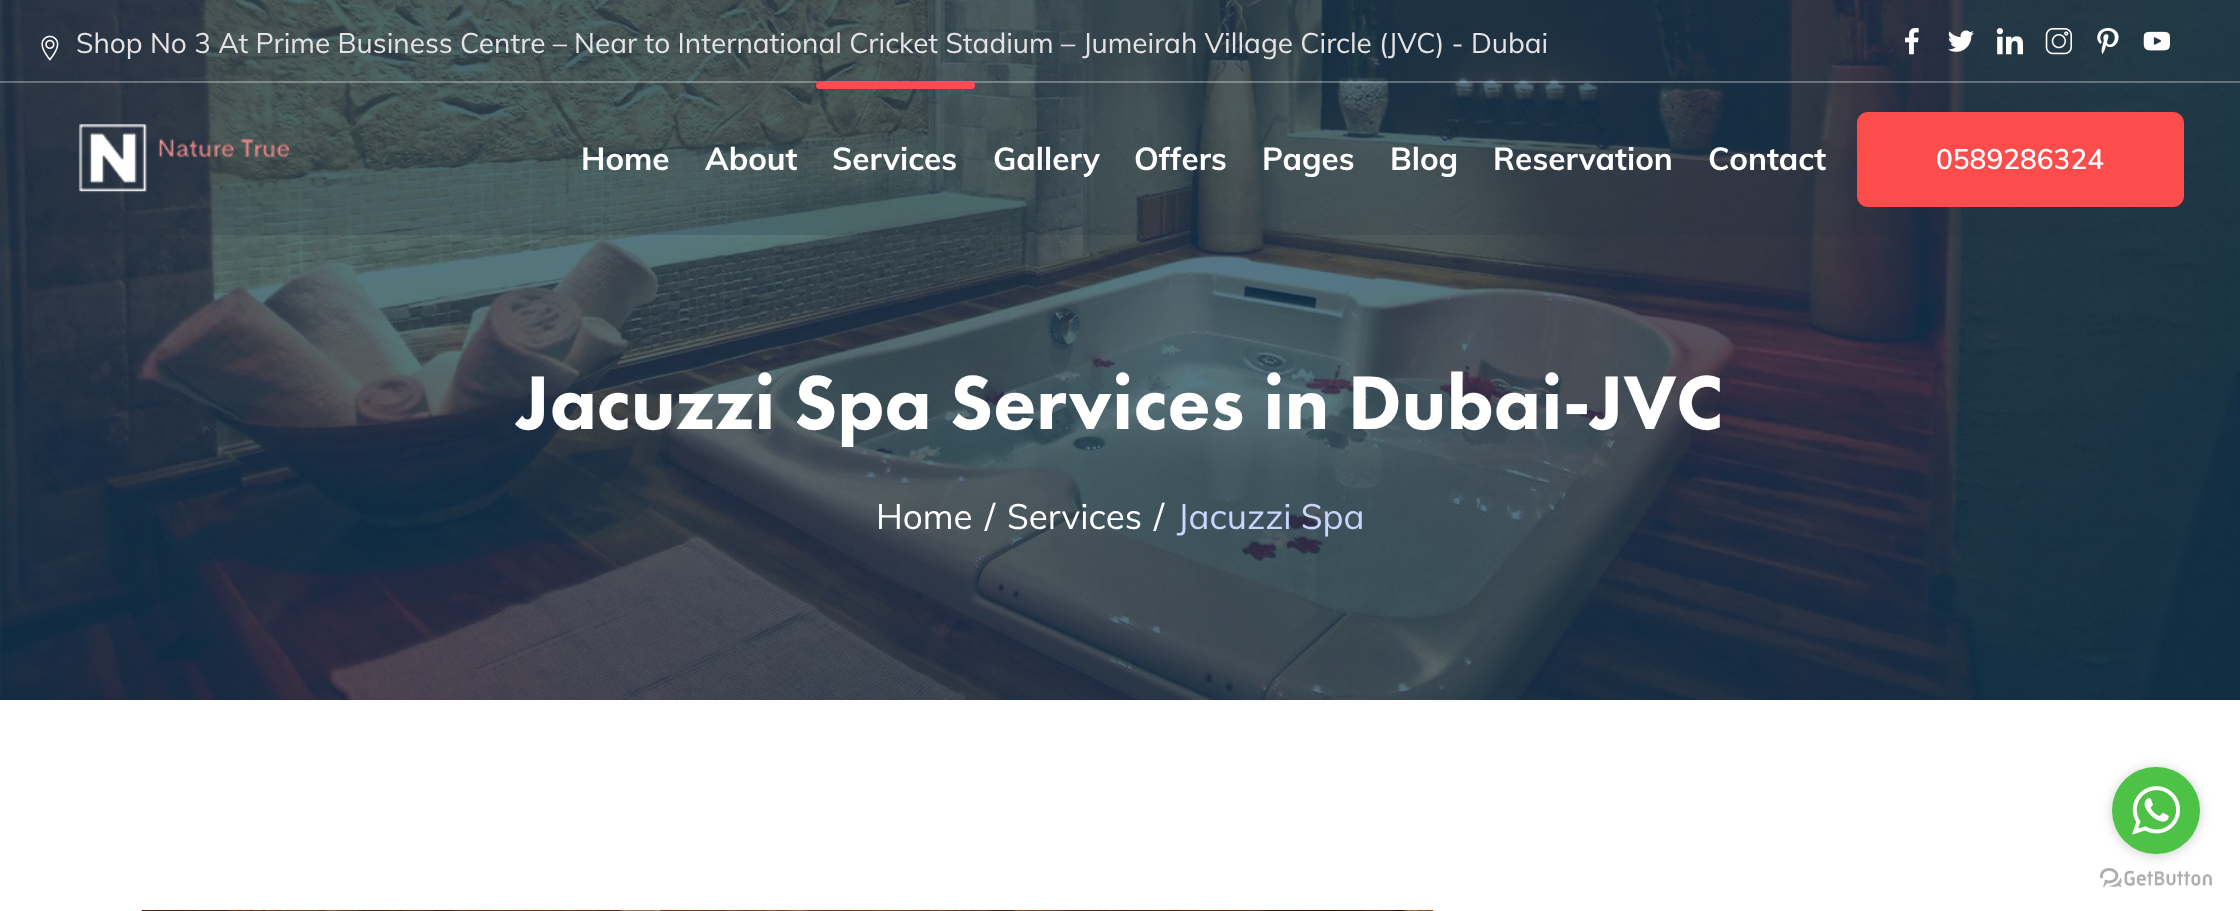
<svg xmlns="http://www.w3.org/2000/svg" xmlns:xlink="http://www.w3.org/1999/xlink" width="2240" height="911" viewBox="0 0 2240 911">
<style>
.cls-1{font:28px Muli;fill:#e5e3e3}
.cls-2{font:bold 31.5px Muli;fill:#ffffff}
.cls-3{font:600 28px Muli;fill:#ffffff}
.cls-4{font:900 78.75px Futura PT;fill:#ffffff}
.cls-5{font:35px Muli;fill:#ffffff}
.cls-6{font:35px Muli;fill:#cbd4fd}
</style>
<rect width="100%" height="100%" fill="#ffffff"/>
<image xlink:href="image8.png" x="0" y="0" width="2240" height="700"/>
<rect fill="#253041" fill-opacity="0.2" x="0" y="0" width="2082" height="235"/>
<image xlink:href="image0.png" x="41" y="35" width="18" height="26"/>
<image xlink:href="image1.png" x="1905" y="28" width="14" height="27"/>
<image xlink:href="image2.png" x="1948" y="30" width="26" height="22"/>
<image xlink:href="image3.png" x="1996" y="28" width="27" height="27"/>
<image xlink:href="image4.png" x="2045" y="28" width="27" height="27"/>
<image xlink:href="image5.png" x="2097" y="28" width="22" height="27"/>
<image xlink:href="image6.png" x="2143" y="31" width="27" height="20"/>
<rect fill="#ffffff" fill-opacity="0.3" x="0" y="81" width="2240" height="2"/>
<image xlink:href="image7.png" x="78" y="124" width="212" height="69"/>
<rect fill="#fc4c4c" x="816" y="82" width="159" height="7" rx="3.5"/>
<rect fill="#fc4c4c" x="1857" y="112" width="327" height="95" rx="11"/>
<image xlink:href="image9.png" x="141" y="910" width="1293" height="1"/>
<image xlink:href="image11.png" x="2100" y="868" width="112" height="19"/>
<rect fill="#888888" fill-opacity="0.4" filter="blur(6px)" x="2112" y="768" width="88" height="88" rx="44"/>
<rect fill="#4dc247" x="2112" y="767" width="88" height="87" rx="43.5"/>
<image xlink:href="image10.png" x="2132" y="786" width="49" height="49"/>
<text class="cls-1" x="76" y="53">Shop No 3 At Prime Business Centre – Near to International Cricket Stadium – Jumeirah Village Circle (JVC) - Dubai</text>
<text class="cls-2" x="581" y="170">Home</text>
<text class="cls-2" x="705" y="170">About</text>
<text class="cls-2" x="832" y="170">Services</text>
<text class="cls-2" x="993" y="170">Gallery</text>
<text class="cls-2" x="1134" y="170">Offers</text>
<text class="cls-2" x="1262" y="170">Pages</text>
<text class="cls-2" x="1390" y="170">Blog</text>
<text class="cls-2" x="1493" y="170">Reservation</text>
<text class="cls-2" x="1708" y="170">Contact</text>
<text class="cls-3" x="1936" y="169">0589286324</text>
<text class="cls-4" x="517" y="429">Jacuzzi Spa Services in Dubai-JVC</text>
<text class="cls-5" x="876" y="529">Home</text>
<text class="cls-5" x="985" y="529">/</text>
<text class="cls-5" x="1007" y="529">Services</text>
<text class="cls-5" x="1154" y="529">/</text>
<text class="cls-6" x="1177" y="529">Jacuzzi Spa</text>
</svg>
